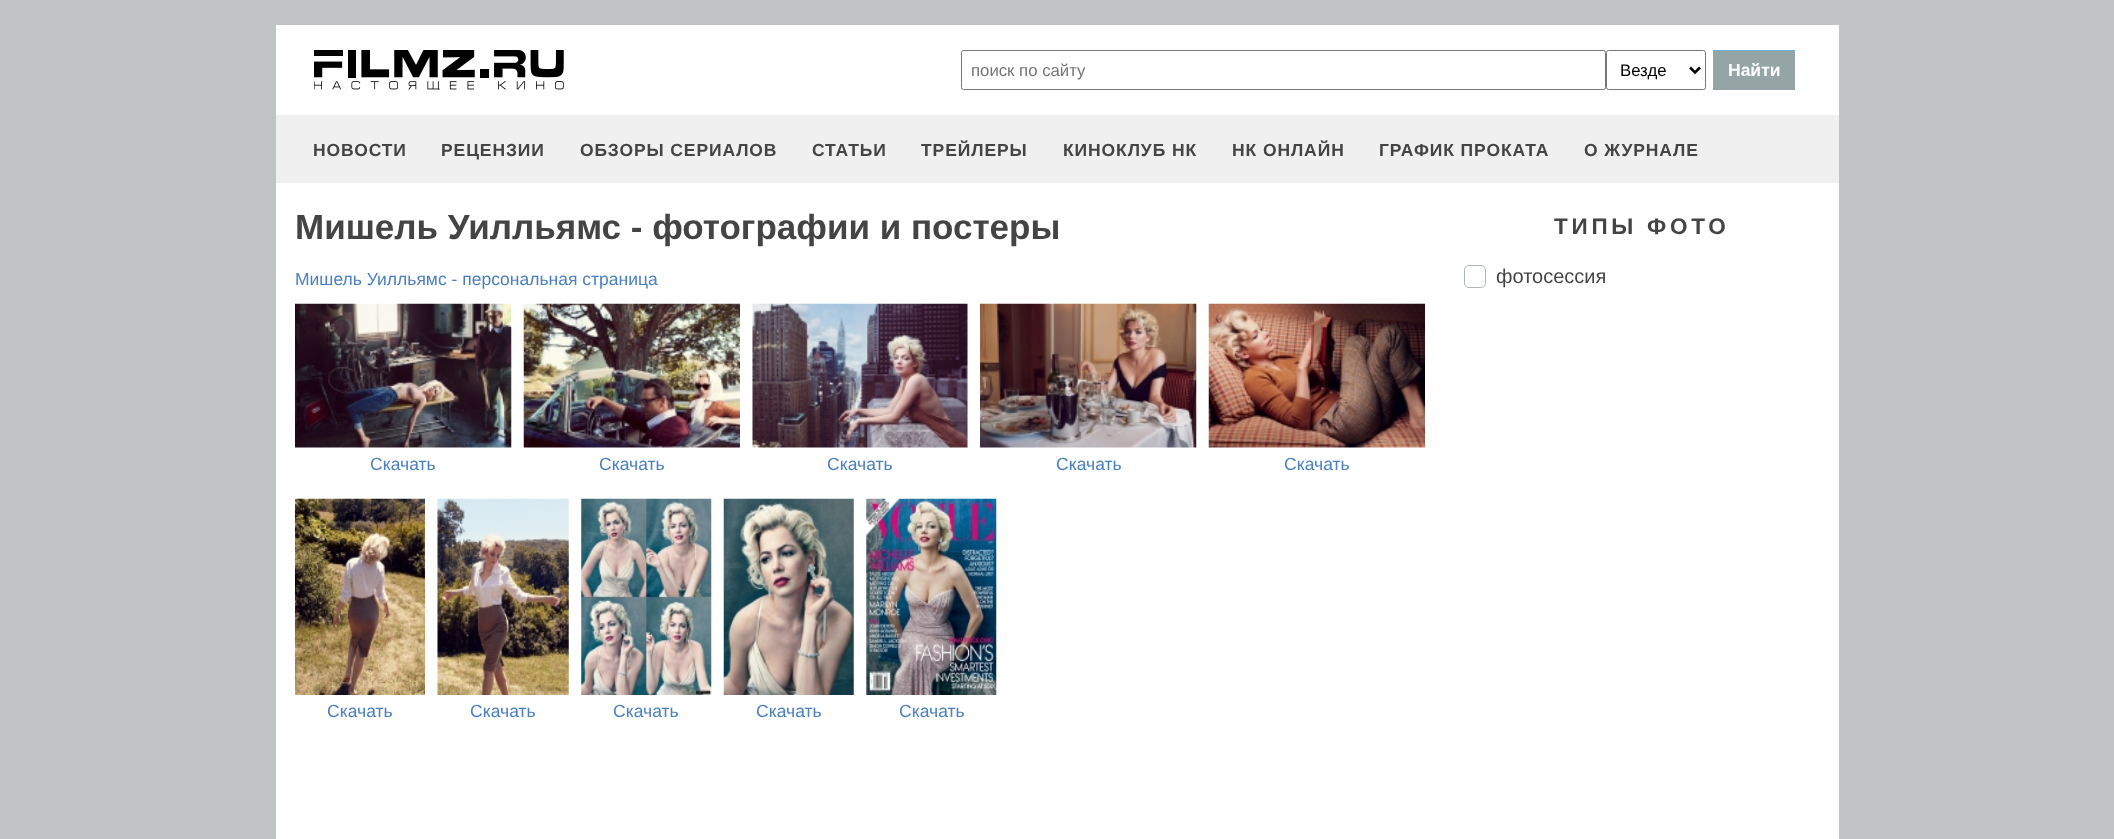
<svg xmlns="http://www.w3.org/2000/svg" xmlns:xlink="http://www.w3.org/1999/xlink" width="2114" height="839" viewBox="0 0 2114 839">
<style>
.cls-1{font:16.75px Liberation Sans;fill:#757575}
.cls-2{font:16.75px Liberation Sans;fill:#000000}
.cls-3{font:bold 17.5px Liberation Sans;fill:#ffffff}
.cls-4{font:bold 17.5px Liberation Sans;letter-spacing:0.9px;fill:#444444}
.cls-5{font:bold 35px Liberation Sans;fill:#444444}
.cls-6{font:17.5px Liberation Sans;fill:#4a80be}
.cls-7{font:bold 22.5px Liberation Sans;letter-spacing:3.75px;fill:#444444}
.cls-8{font:20px Liberation Sans;fill:#444444}
</style>
<rect width="100%" height="100%" fill="#c1c4c5"/>
<rect fill="#ffffff" x="276" y="25" width="1563" height="90"/>
<image xlink:href="image0.png" x="314" y="50" width="250" height="40"/>
<rect fill="none" stroke="#767676" x="961.5" y="50.5" width="644" height="39" rx="2"/>
<rect fill="none" stroke="#767676" x="1606.5" y="50.5" width="99" height="39" rx="2"/>
<path fill="none" stroke="#000000" stroke-width="2.5" d="M1690 67.5L1695 72.5L1700 67.5"/>
<rect fill="#95a5a6" x="1713" y="51" width="82" height="39"/>
<rect fill="#6fb0db" x="1713" y="50" width="82" height="1"/>
<rect fill="#f0f0f0" x="276" y="115" width="1563" height="68"/>
<rect fill="#ffffff" x="276" y="183" width="1563" height="656"/>
<image xlink:href="image1.png" x="295" y="303" width="217" height="145"/>
<image xlink:href="image2.png" x="523" y="303" width="217" height="145"/>
<image xlink:href="image3.png" x="752" y="303" width="216" height="145"/>
<image xlink:href="image4.png" x="980" y="303" width="217" height="145"/>
<image xlink:href="image5.png" x="1208" y="303" width="217" height="145"/>
<image xlink:href="image6.png" x="295" y="498" width="130" height="197"/>
<image xlink:href="image7.png" x="437" y="498" width="132" height="197"/>
<image xlink:href="image8.png" x="581" y="498" width="131" height="197"/>
<image xlink:href="image9.png" x="723" y="498" width="131" height="197"/>
<image xlink:href="image10.png" x="866" y="498" width="131" height="197"/>
<rect fill="none" stroke="#adb5bd" x="1464.5" y="265.5" width="21" height="22" rx="4.5"/>
<text class="cls-1" x="971" y="76">поиск по сайту</text>
<text class="cls-2" x="1620" y="76">Везде</text>
<text class="cls-3" x="1728" y="76">Найти</text>
<text class="cls-4" x="313" y="156">НОВОСТИ</text>
<text class="cls-4" x="441" y="156">РЕЦЕНЗИИ</text>
<text class="cls-4" x="580" y="156">ОБЗОРЫ СЕРИАЛОВ</text>
<text class="cls-4" x="812" y="156">СТАТЬИ</text>
<text class="cls-4" x="921" y="156">ТРЕЙЛЕРЫ</text>
<text class="cls-4" x="1063" y="156">КИНОКЛУБ НК</text>
<text class="cls-4" x="1232" y="156">НК ОНЛАЙН</text>
<text class="cls-4" x="1379" y="156">ГРАФИК ПРОКАТА</text>
<text class="cls-4" x="1584" y="156">О ЖУРНАЛЕ</text>
<text class="cls-5" x="295" y="239">Мишель Уилльямс - фотографии и постеры</text>
<text class="cls-6" x="295" y="285">Мишель Уилльямс - персональная страница</text>
<text class="cls-6" x="370" y="470">Скачать</text>
<text class="cls-6" x="599" y="470">Скачать</text>
<text class="cls-6" x="827" y="470">Скачать</text>
<text class="cls-6" x="1056" y="470">Скачать</text>
<text class="cls-6" x="1284" y="470">Скачать</text>
<text class="cls-6" x="327" y="717">Скачать</text>
<text class="cls-6" x="470" y="717">Скачать</text>
<text class="cls-6" x="613" y="717">Скачать</text>
<text class="cls-6" x="756" y="717">Скачать</text>
<text class="cls-6" x="899" y="717">Скачать</text>
<text class="cls-7" x="1554" y="234">ТИПЫ ФОТО</text>
<text class="cls-8" x="1496" y="283">фотосессия</text>
</svg>
